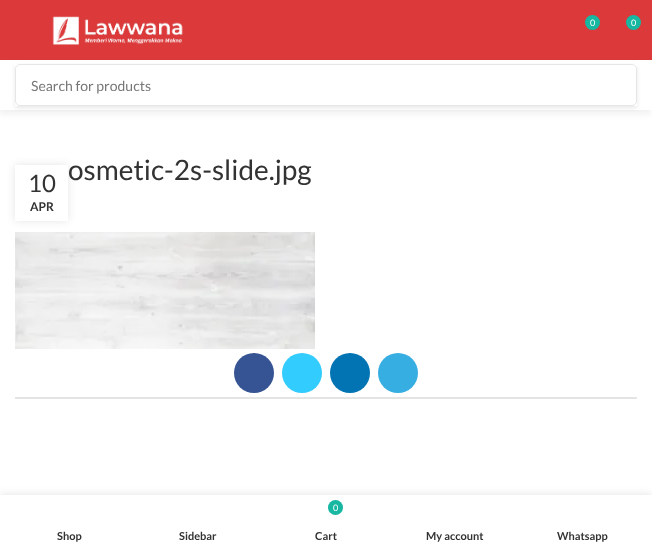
<svg xmlns="http://www.w3.org/2000/svg" xmlns:xlink="http://www.w3.org/1999/xlink" width="652" height="550" viewBox="0 0 652 550">
<style>
.cls-1{font:9px Lato;fill:#ffffff}
.cls-2{font:14px Lato;fill:#777777}
.cls-3{font:24px Lato;fill:#333333}
.cls-4{font:bold 12px Lato;fill:#333333}
.cls-5{font:28px Lato;fill:#333333}
.cls-6{font:bold 11px Lato;fill:#333333}
</style>
<defs>
<clipPath id="clip1"><path d="M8 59H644V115H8ZM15 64H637V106H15Z" clip-rule="evenodd"/></clipPath>
</defs>
<rect width="100%" height="100%" fill="#ffffff"/>
<rect fill="#db393a" x="0" y="0" width="652" height="60"/>
<image xlink:href="image0.png" x="52" y="16" width="131" height="29"/>
<circle fill="#17b7a2" cx="592.5" cy="22.5" r="7.5"/>
<circle fill="#17b7a2" cx="633.5" cy="22.5" r="7.5"/>
<rect fill="#000000" fill-opacity="0.06" filter="blur(3px)" x="-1" y="64" width="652" height="50"/>
<rect fill="#ffffff" x="0" y="61" width="652" height="49"/>
<g clip-path="url(#clip1)">
<rect fill="#000000" fill-opacity="0.09" filter="blur(2px)" x="15" y="66" width="622" height="42"/>
</g>
<rect fill="none" stroke="#e6e6e6" x="15.5" y="64.5" width="621" height="41" rx="4.5"/>
<image xlink:href="image1.png" x="15" y="232" width="300" height="117"/>
<rect fill="#000000" fill-opacity="0.1" filter="blur(4.5px)" x="15" y="165" width="53" height="56"/>
<rect fill="#ffffff" x="15" y="165" width="53" height="56"/>
<circle fill="#365493" cx="254" cy="373" r="20"/>
<circle fill="#33ccff" cx="302" cy="373" r="20"/>
<circle fill="#0274b3" cx="350" cy="373" r="20"/>
<circle fill="#37aee2" cx="398" cy="373" r="20"/>
<rect fill="#e4e4e4" x="15" y="397" width="622" height="2"/>
<rect fill="#000000" fill-opacity="0.12" filter="blur(4.5px)" x="0" y="495" width="652" height="55"/>
<rect fill="#ffffff" x="0" y="495" width="652" height="55"/>
<circle fill="#17b7a2" cx="335.5" cy="507.5" r="7.5"/>
<text class="cls-1" x="590" y="26">0</text>
<text class="cls-1" x="631" y="26">0</text>
<text class="cls-2" x="31" y="91">Search for products</text>
<text class="cls-3" x="28" y="192">10</text>
<text class="cls-4" x="30" y="211">APR</text>
<text class="cls-5" x="68" y="180">osmetic-2s-slide.jpg</text>
<text class="cls-6" x="57" y="540">Shop</text>
<text class="cls-6" x="179" y="540">Sidebar</text>
<text class="cls-1" x="333" y="511">0</text>
<text class="cls-6" x="315" y="540">Cart</text>
<text class="cls-6" x="426" y="540">My account</text>
<text class="cls-6" x="557" y="540">Whatsapp</text>
</svg>
